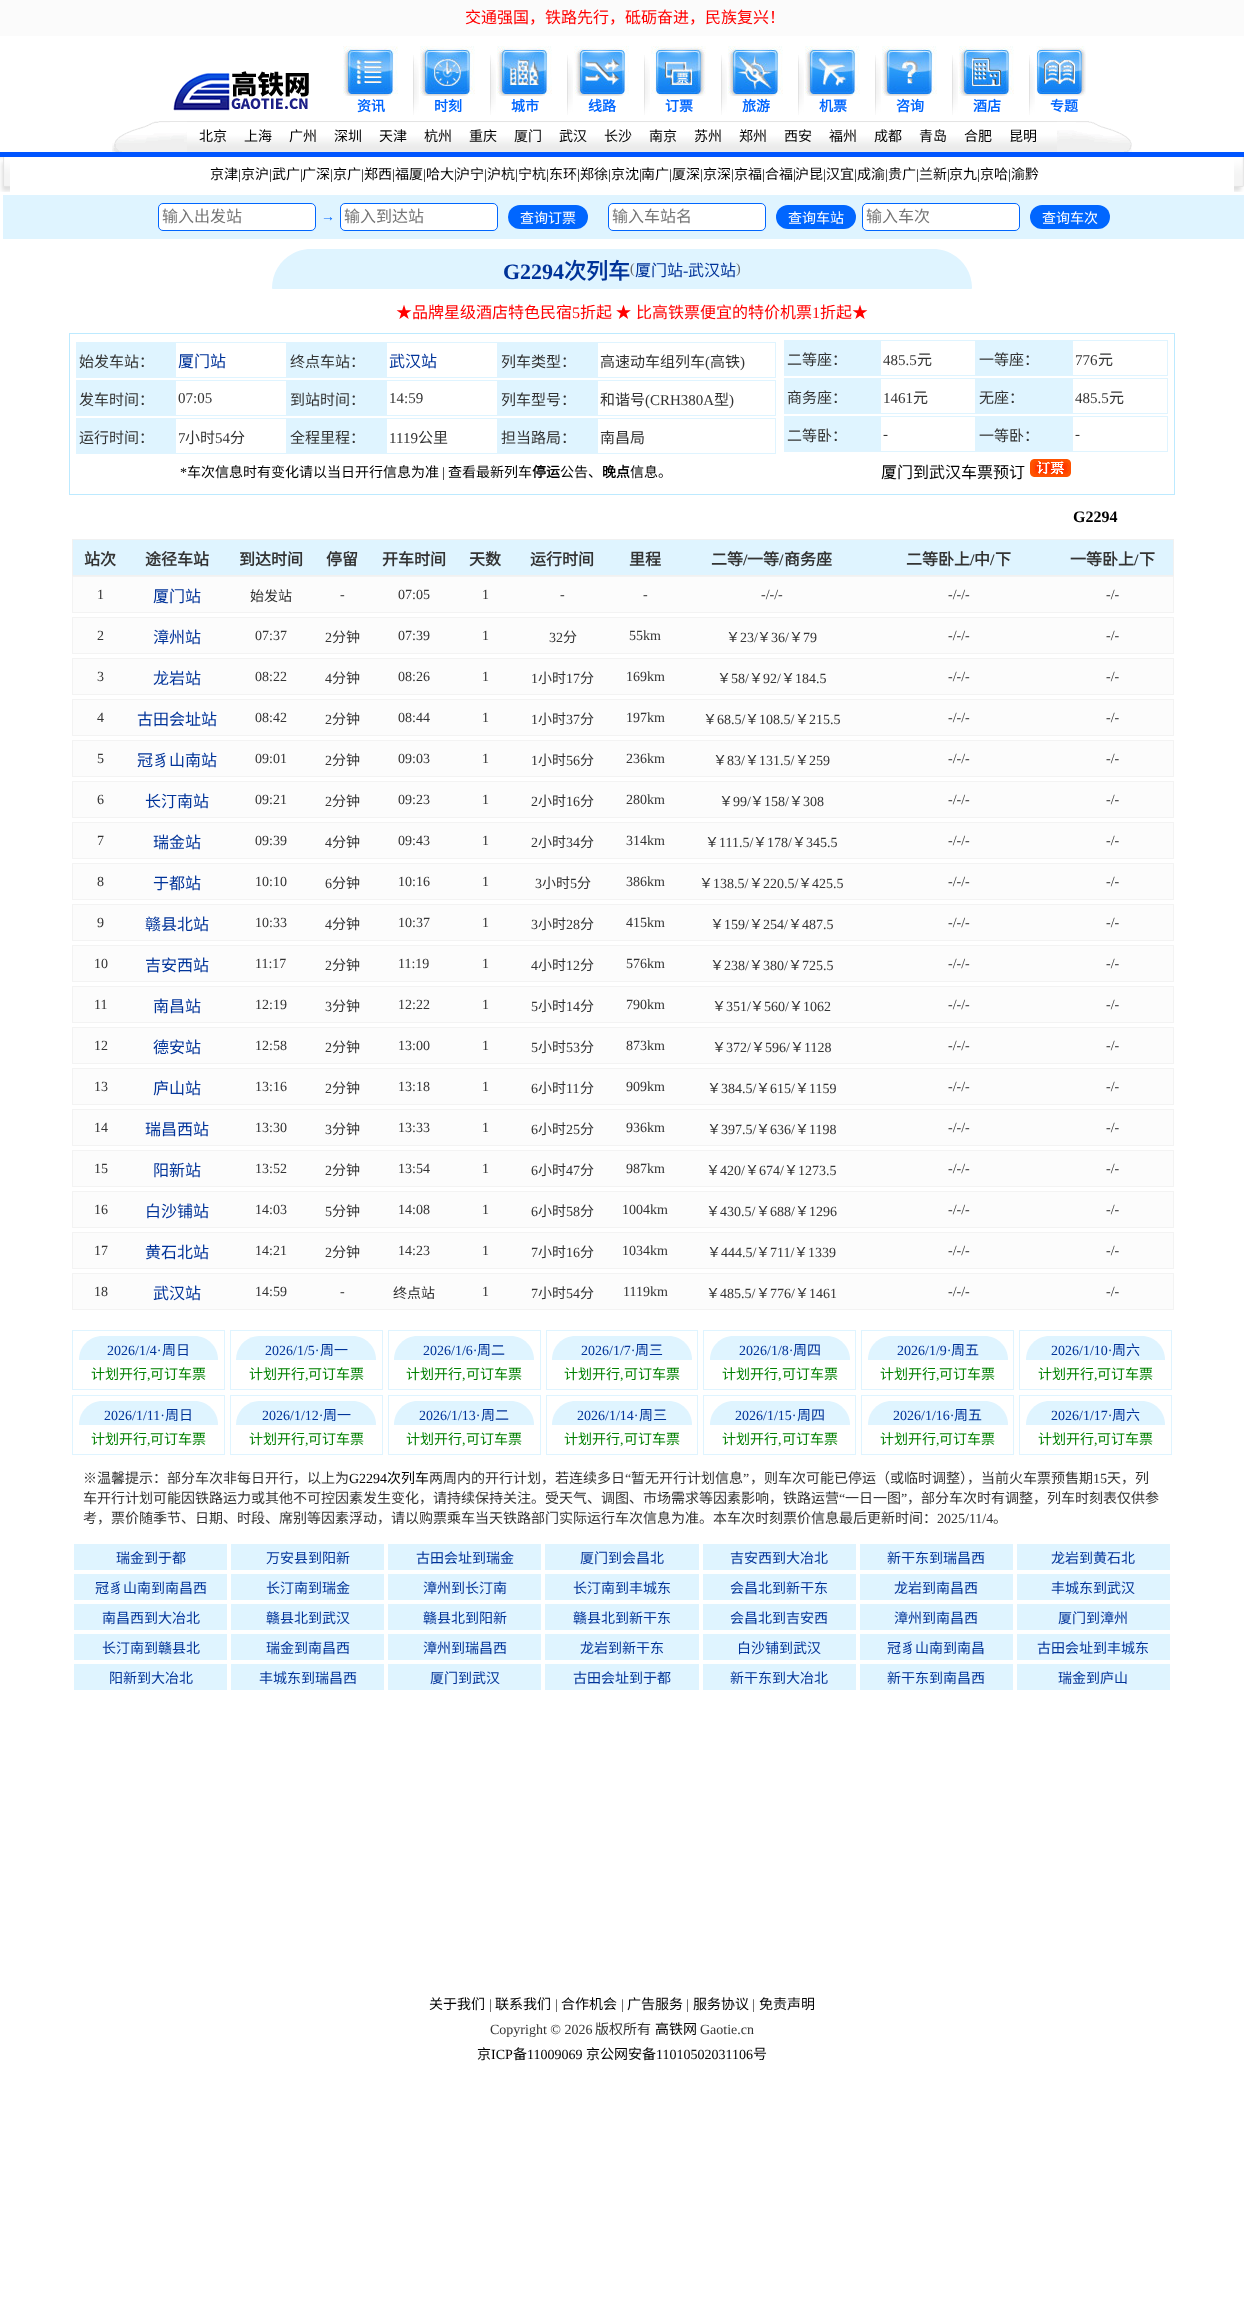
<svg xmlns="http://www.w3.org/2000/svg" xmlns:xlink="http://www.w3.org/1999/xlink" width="1244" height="2304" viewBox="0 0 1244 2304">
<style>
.cls-1{font:16px Noto Sans CJK SC;fill:#ff0000}
.cls-2{font:bold 14px Noto Sans CJK SC;fill:#0066ff}
.cls-3{font:14px Noto Sans CJK SC;fill:#000000}
.cls-4{font:14px Liberation Serif;fill:#000000}
.cls-5{font:16px Noto Sans CJK SC;fill:#757575}
.cls-6{font:14px Liberation Serif;fill:#0066ff}
.cls-7{font:14px Noto Sans CJK SC;fill:#ffffff}
.cls-8{font:bold 22px Liberation Serif;fill:#003399}
.cls-9{font:bold 22px Noto Sans CJK SC;fill:#003399}
.cls-10{font:14px Liberation Serif;fill:#666666}
.cls-11{font:16px Noto Sans CJK SC;fill:#003399}
.cls-12{font:16px Liberation Serif;fill:#003399}
.cls-13{font:16px Liberation Serif;fill:#ff0000}
.cls-14{font:15px Noto Sans CJK SC;fill:#333333}
.cls-15{font:15px Liberation Serif;fill:#333333}
.cls-16{font:bold 14px Noto Sans CJK SC;fill:#000000}
.cls-17{font:16px Noto Sans CJK SC;fill:#000000}
.cls-18{font:bold 16px Liberation Serif;fill:#000000}
.cls-19{font:bold 16px Noto Sans CJK SC;fill:#333333}
.cls-20{font:bold 16px Liberation Serif;fill:#333333}
.cls-21{font:14px Liberation Serif;fill:#333333}
.cls-22{font:14px Noto Sans CJK SC;fill:#333333}
.cls-23{font:14px Liberation Serif;fill:#003399}
.cls-24{font:14px Noto Sans CJK SC;fill:#003399}
.cls-25{font:14px Noto Sans CJK SC;fill:#008000}
.cls-26{font:14px Liberation Serif;fill:#008000}
</style>
<rect width="100%" height="100%" fill="#ffffff"/>
<rect fill="#fbfbfb" x="0" y="0" width="1244" height="36"/>
<image xlink:href="image0.png" x="173" y="71" width="136" height="40"/>
<image xlink:href="image1.png" x="343" y="46" width="55" height="50"/>
<image xlink:href="image2.png" x="413" y="55" width="6" height="60"/>
<image xlink:href="image3.png" x="420" y="46" width="55" height="50"/>
<image xlink:href="image2.png" x="490" y="55" width="6" height="60"/>
<image xlink:href="image4.png" x="497" y="46" width="55" height="50"/>
<image xlink:href="image2.png" x="567" y="55" width="6" height="60"/>
<image xlink:href="image5.png" x="574" y="46" width="55" height="50"/>
<image xlink:href="image2.png" x="644" y="55" width="6" height="60"/>
<image xlink:href="image6.png" x="651" y="46" width="55" height="50"/>
<image xlink:href="image2.png" x="721" y="55" width="6" height="60"/>
<image xlink:href="image7.png" x="728" y="46" width="55" height="50"/>
<image xlink:href="image2.png" x="798" y="55" width="6" height="60"/>
<image xlink:href="image8.png" x="805" y="46" width="55" height="50"/>
<image xlink:href="image2.png" x="875" y="55" width="6" height="60"/>
<image xlink:href="image9.png" x="882" y="46" width="55" height="50"/>
<image xlink:href="image2.png" x="952" y="55" width="6" height="60"/>
<image xlink:href="image10.png" x="959" y="46" width="55" height="50"/>
<image xlink:href="image2.png" x="1029" y="55" width="6" height="60"/>
<image xlink:href="image11.png" x="1036" y="46" width="50" height="50"/>
<rect fill="#0055ff" x="0" y="152" width="1244" height="5"/>
<image xlink:href="image12.png" x="112" y="121" width="75" height="31"/>
<image xlink:href="image13.png" x="187" y="121" width="870" height="31"/>
<image xlink:href="image14.png" x="1057" y="121" width="75" height="31"/>
<image xlink:href="image15.png" x="0" y="157" width="10" height="35"/>
<image xlink:href="image16.png" x="1234" y="157" width="10" height="35"/>
<rect fill="#dff4ff" x="3" y="195" width="1241" height="44"/>
<rect fill="#ffffff" stroke="#0066ff" x="158.5" y="203.5" width="157" height="27" rx="4.5"/>
<rect fill="#ffffff" stroke="#0066ff" x="340.5" y="203.5" width="157" height="27" rx="4.5"/>
<rect fill="#0066ff" x="508" y="205" width="80" height="24" rx="12"/>
<rect fill="#ffffff" stroke="#0066ff" x="608.5" y="203.5" width="157" height="27" rx="4.5"/>
<rect fill="#0066ff" x="776" y="205" width="80" height="24" rx="12"/>
<rect fill="#ffffff" stroke="#0066ff" x="862.5" y="203.5" width="157" height="27" rx="4.5"/>
<rect fill="#0066ff" x="1030" y="205" width="80" height="24" rx="12"/>
<path fill="#dff4ff" d="M311 249H933C954.5 249 972 266.5 972 288C972 288.5 971.5 289 971 289H273C272.5 289 272 288.5 272 288C272 266.5 289.5 249 311 249Z"/>
<rect fill="none" stroke="#bdeaff" x="69.5" y="333.5" width="1105" height="161"/>
<rect fill="#dff4ff" x="76" y="342" width="99" height="36"/>
<rect fill="none" stroke="#dff4ff" x="175.5" y="342.5" width="111" height="35"/>
<rect fill="#dff4ff" x="287" y="342" width="99" height="36"/>
<rect fill="none" stroke="#dff4ff" x="386.5" y="342.5" width="111" height="35"/>
<rect fill="#dff4ff" x="498" y="342" width="99" height="36"/>
<rect fill="none" stroke="#dff4ff" x="597.5" y="342.5" width="178" height="35"/>
<rect fill="#dff4ff" x="76" y="380" width="99" height="36"/>
<rect fill="none" stroke="#dff4ff" x="175.5" y="380.5" width="111" height="35"/>
<rect fill="#dff4ff" x="287" y="380" width="99" height="36"/>
<rect fill="none" stroke="#dff4ff" x="386.5" y="380.5" width="111" height="35"/>
<rect fill="#dff4ff" x="498" y="380" width="99" height="36"/>
<rect fill="none" stroke="#dff4ff" x="597.5" y="380.5" width="178" height="35"/>
<rect fill="#dff4ff" x="76" y="418" width="99" height="36"/>
<rect fill="none" stroke="#dff4ff" x="175.5" y="418.5" width="111" height="35"/>
<rect fill="#dff4ff" x="287" y="418" width="99" height="36"/>
<rect fill="none" stroke="#dff4ff" x="386.5" y="418.5" width="111" height="35"/>
<rect fill="#dff4ff" x="498" y="418" width="99" height="36"/>
<rect fill="none" stroke="#dff4ff" x="597.5" y="418.5" width="178" height="35"/>
<rect fill="#dff4ff" x="784" y="340" width="96" height="36"/>
<rect fill="none" stroke="#dff4ff" x="880.5" y="340.5" width="95" height="35"/>
<rect fill="#dff4ff" x="976" y="340" width="96" height="36"/>
<rect fill="none" stroke="#dff4ff" x="1072.5" y="340.5" width="95" height="35"/>
<rect fill="#dff4ff" x="784" y="378" width="96" height="36"/>
<rect fill="none" stroke="#dff4ff" x="880.5" y="378.5" width="95" height="35"/>
<rect fill="#dff4ff" x="976" y="378" width="96" height="36"/>
<rect fill="none" stroke="#dff4ff" x="1072.5" y="378.5" width="95" height="35"/>
<rect fill="#dff4ff" x="784" y="416" width="96" height="36"/>
<rect fill="none" stroke="#dff4ff" x="880.5" y="416.5" width="95" height="35"/>
<rect fill="#dff4ff" x="976" y="416" width="96" height="36"/>
<rect fill="none" stroke="#dff4ff" x="1072.5" y="416.5" width="95" height="35"/>
<image xlink:href="image17.png" x="1030" y="459" width="41" height="18"/>
<rect fill="#dff4ff" stroke="#f1f1f1" x="72.5" y="539.5" width="1101" height="36"/>
<rect fill="#fcfcfc" stroke="#f3f3f3" x="72.5" y="576.5" width="1101" height="36"/>
<rect fill="#fcfcfc" stroke="#f3f3f3" x="72.5" y="617.5" width="1101" height="36"/>
<rect fill="#fcfcfc" stroke="#f3f3f3" x="72.5" y="658.5" width="1101" height="36"/>
<rect fill="#fcfcfc" stroke="#f3f3f3" x="72.5" y="699.5" width="1101" height="36"/>
<rect fill="#fcfcfc" stroke="#f3f3f3" x="72.5" y="740.5" width="1101" height="36"/>
<rect fill="#fcfcfc" stroke="#f3f3f3" x="72.5" y="781.5" width="1101" height="36"/>
<rect fill="#fcfcfc" stroke="#f3f3f3" x="72.5" y="822.5" width="1101" height="36"/>
<rect fill="#fcfcfc" stroke="#f3f3f3" x="72.5" y="863.5" width="1101" height="36"/>
<rect fill="#fcfcfc" stroke="#f3f3f3" x="72.5" y="904.5" width="1101" height="36"/>
<rect fill="#fcfcfc" stroke="#f3f3f3" x="72.5" y="945.5" width="1101" height="36"/>
<rect fill="#fcfcfc" stroke="#f3f3f3" x="72.5" y="986.5" width="1101" height="36"/>
<rect fill="#fcfcfc" stroke="#f3f3f3" x="72.5" y="1027.5" width="1101" height="36"/>
<rect fill="#fcfcfc" stroke="#f3f3f3" x="72.5" y="1068.5" width="1101" height="36"/>
<rect fill="#fcfcfc" stroke="#f3f3f3" x="72.5" y="1109.5" width="1101" height="36"/>
<rect fill="#fcfcfc" stroke="#f3f3f3" x="72.5" y="1150.5" width="1101" height="36"/>
<rect fill="#fcfcfc" stroke="#f3f3f3" x="72.5" y="1191.5" width="1101" height="36"/>
<rect fill="#fcfcfc" stroke="#f3f3f3" x="72.5" y="1232.5" width="1101" height="36"/>
<rect fill="#fcfcfc" stroke="#f3f3f3" x="72.5" y="1273.5" width="1101" height="36"/>
<rect fill="none" stroke="#dff4ff" x="72.5" y="1330.5" width="152" height="59"/>
<path fill="#dff4ff" d="M102.5 1336H194.5C207.5 1336 218 1346.5 218 1359.5C218 1360 218 1360 217.5 1360H79.5C79 1360 79 1360 79 1359.5C79 1346.5 89.5 1336 102.5 1336Z"/>
<rect fill="none" stroke="#dff4ff" x="230.5" y="1330.5" width="152" height="59"/>
<path fill="#dff4ff" d="M259.5 1336H352.5C365.5 1336 376 1346.5 376 1359.5C376 1360 376 1360 375.5 1360H236.5C236 1360 236 1360 236 1359.5C236 1346.5 246.5 1336 259.5 1336Z"/>
<rect fill="none" stroke="#dff4ff" x="388.5" y="1330.5" width="152" height="59"/>
<path fill="#dff4ff" d="M417.5 1336H510.5C523.5 1336 534 1346.5 534 1359.5C534 1360 534 1360 533.5 1360H394.5C394 1360 394 1360 394 1359.5C394 1346.5 404.5 1336 417.5 1336Z"/>
<rect fill="none" stroke="#dff4ff" x="546.5" y="1330.5" width="151" height="59"/>
<path fill="#dff4ff" d="M575.5 1336H668.5C681.5 1336 692 1346.5 692 1359.5C692 1360 692 1360 691.5 1360H552.5C552 1360 552 1360 552 1359.5C552 1346.5 562.5 1336 575.5 1336Z"/>
<rect fill="none" stroke="#dff4ff" x="703.5" y="1330.5" width="152" height="59"/>
<path fill="#dff4ff" d="M733.5 1336H826.5C839.5 1336 850 1346.5 850 1359.5C850 1360 850 1360 849.5 1360H710.5C710 1360 710 1360 710 1359.5C710 1346.5 720.5 1336 733.5 1336Z"/>
<rect fill="none" stroke="#dff4ff" x="861.5" y="1330.5" width="152" height="59"/>
<path fill="#dff4ff" d="M891.5 1336H984.5C997.5 1336 1008 1346.5 1008 1359.5C1008 1360 1008 1360 1007.5 1360H868.5C868 1360 868 1360 868 1359.5C868 1346.5 878.5 1336 891.5 1336Z"/>
<rect fill="none" stroke="#dff4ff" x="1019.5" y="1330.5" width="152" height="59"/>
<path fill="#dff4ff" d="M1049.5 1336H1141.5C1154.5 1336 1165 1346.5 1165 1359.5C1165 1360 1165 1360 1164.5 1360H1026.5C1026 1360 1026 1360 1026 1359.5C1026 1346.5 1036.5 1336 1049.5 1336Z"/>
<rect fill="none" stroke="#dff4ff" x="72.5" y="1395.5" width="152" height="59"/>
<path fill="#dff4ff" d="M102.5 1401H194.5C207.5 1401 218 1411.5 218 1424.5C218 1425 218 1425 217.5 1425H79.5C79 1425 79 1425 79 1424.5C79 1411.5 89.5 1401 102.5 1401Z"/>
<rect fill="none" stroke="#dff4ff" x="230.5" y="1395.5" width="152" height="59"/>
<path fill="#dff4ff" d="M259.5 1401H352.5C365.5 1401 376 1411.5 376 1424.5C376 1425 376 1425 375.5 1425H236.5C236 1425 236 1425 236 1424.5C236 1411.5 246.5 1401 259.5 1401Z"/>
<rect fill="none" stroke="#dff4ff" x="388.5" y="1395.5" width="152" height="59"/>
<path fill="#dff4ff" d="M417.5 1401H510.5C523.5 1401 534 1411.5 534 1424.5C534 1425 534 1425 533.5 1425H394.5C394 1425 394 1425 394 1424.5C394 1411.5 404.5 1401 417.5 1401Z"/>
<rect fill="none" stroke="#dff4ff" x="546.5" y="1395.5" width="151" height="59"/>
<path fill="#dff4ff" d="M575.5 1401H668.5C681.5 1401 692 1411.5 692 1424.5C692 1425 692 1425 691.5 1425H552.5C552 1425 552 1425 552 1424.5C552 1411.5 562.5 1401 575.5 1401Z"/>
<rect fill="none" stroke="#dff4ff" x="703.5" y="1395.5" width="152" height="59"/>
<path fill="#dff4ff" d="M733.5 1401H826.5C839.5 1401 850 1411.5 850 1424.5C850 1425 850 1425 849.5 1425H710.5C710 1425 710 1425 710 1424.5C710 1411.5 720.5 1401 733.5 1401Z"/>
<rect fill="none" stroke="#dff4ff" x="861.5" y="1395.5" width="152" height="59"/>
<path fill="#dff4ff" d="M891.5 1401H984.5C997.5 1401 1008 1411.5 1008 1424.5C1008 1425 1008 1425 1007.5 1425H868.5C868 1425 868 1425 868 1424.5C868 1411.5 878.5 1401 891.5 1401Z"/>
<rect fill="none" stroke="#dff4ff" x="1019.5" y="1395.5" width="152" height="59"/>
<path fill="#dff4ff" d="M1049.5 1401H1141.5C1154.5 1401 1165 1411.5 1165 1424.5C1165 1425 1165 1425 1164.5 1425H1026.5C1026 1425 1026 1425 1026 1424.5C1026 1411.5 1036.5 1401 1049.5 1401Z"/>
<rect fill="#dff4ff" x="74" y="1544" width="153" height="26"/>
<rect fill="#dff4ff" x="231" y="1544" width="153" height="26"/>
<rect fill="#dff4ff" x="388" y="1544" width="153" height="26"/>
<rect fill="#dff4ff" x="545" y="1544" width="154" height="26"/>
<rect fill="#dff4ff" x="703" y="1544" width="153" height="26"/>
<rect fill="#dff4ff" x="860" y="1544" width="153" height="26"/>
<rect fill="#dff4ff" x="1017" y="1544" width="153" height="26"/>
<rect fill="#dff4ff" x="74" y="1574" width="153" height="26"/>
<rect fill="#dff4ff" x="231" y="1574" width="153" height="26"/>
<rect fill="#dff4ff" x="388" y="1574" width="153" height="26"/>
<rect fill="#dff4ff" x="545" y="1574" width="154" height="26"/>
<rect fill="#dff4ff" x="703" y="1574" width="153" height="26"/>
<rect fill="#dff4ff" x="860" y="1574" width="153" height="26"/>
<rect fill="#dff4ff" x="1017" y="1574" width="153" height="26"/>
<rect fill="#dff4ff" x="74" y="1604" width="153" height="26"/>
<rect fill="#dff4ff" x="231" y="1604" width="153" height="26"/>
<rect fill="#dff4ff" x="388" y="1604" width="153" height="26"/>
<rect fill="#dff4ff" x="545" y="1604" width="154" height="26"/>
<rect fill="#dff4ff" x="703" y="1604" width="153" height="26"/>
<rect fill="#dff4ff" x="860" y="1604" width="153" height="26"/>
<rect fill="#dff4ff" x="1017" y="1604" width="153" height="26"/>
<rect fill="#dff4ff" x="74" y="1634" width="153" height="26"/>
<rect fill="#dff4ff" x="231" y="1634" width="153" height="26"/>
<rect fill="#dff4ff" x="388" y="1634" width="153" height="26"/>
<rect fill="#dff4ff" x="545" y="1634" width="154" height="26"/>
<rect fill="#dff4ff" x="703" y="1634" width="153" height="26"/>
<rect fill="#dff4ff" x="860" y="1634" width="153" height="26"/>
<rect fill="#dff4ff" x="1017" y="1634" width="153" height="26"/>
<rect fill="#dff4ff" x="74" y="1664" width="153" height="26"/>
<rect fill="#dff4ff" x="231" y="1664" width="153" height="26"/>
<rect fill="#dff4ff" x="388" y="1664" width="153" height="26"/>
<rect fill="#dff4ff" x="545" y="1664" width="154" height="26"/>
<rect fill="#dff4ff" x="703" y="1664" width="153" height="26"/>
<rect fill="#dff4ff" x="860" y="1664" width="153" height="26"/>
<rect fill="#dff4ff" x="1017" y="1664" width="153" height="26"/>
<text class="cls-1" x="465" y="23">交通强国，铁路先行，砥砺奋进，民族复兴！</text>
<text class="cls-2" x="357" y="111">资讯</text>
<text class="cls-2" x="434" y="111">时刻</text>
<text class="cls-2" x="511" y="111">城市</text>
<text class="cls-2" x="588" y="111">线路</text>
<text class="cls-2" x="665" y="111">订票</text>
<text class="cls-2" x="742" y="111">旅游</text>
<text class="cls-2" x="819" y="111">机票</text>
<text class="cls-2" x="896" y="111">咨询</text>
<text class="cls-2" x="973" y="111">酒店</text>
<text class="cls-2" x="1050" y="111">专题</text>
<text class="cls-3" x="199" y="141">北京</text>
<text class="cls-3" x="244" y="141">上海</text>
<text class="cls-3" x="289" y="141">广州</text>
<text class="cls-3" x="334" y="141">深圳</text>
<text class="cls-3" x="379" y="141">天津</text>
<text class="cls-3" x="424" y="141">杭州</text>
<text class="cls-3" x="469" y="141">重庆</text>
<text class="cls-3" x="514" y="141">厦门</text>
<text class="cls-3" x="559" y="141">武汉</text>
<text class="cls-3" x="604" y="141">长沙</text>
<text class="cls-3" x="649" y="141">南京</text>
<text class="cls-3" x="694" y="141">苏州</text>
<text class="cls-3" x="739" y="141">郑州</text>
<text class="cls-3" x="784" y="141">西安</text>
<text class="cls-3" x="829" y="141">福州</text>
<text class="cls-3" x="874" y="141">成都</text>
<text class="cls-3" x="919" y="141">青岛</text>
<text class="cls-3" x="964" y="141">合肥</text>
<text class="cls-3" x="1009" y="141">昆明</text>
<text class="cls-3" x="210" y="179">京津</text>
<text class="cls-4" x="238" y="179">|</text>
<text class="cls-3" x="241" y="179">京沪</text>
<text class="cls-4" x="269" y="179">|</text>
<text class="cls-3" x="272" y="179">武广</text>
<text class="cls-4" x="300" y="179">|</text>
<text class="cls-3" x="302" y="179">广深</text>
<text class="cls-4" x="330" y="179">|</text>
<text class="cls-3" x="333" y="179">京广</text>
<text class="cls-4" x="361" y="179">|</text>
<text class="cls-3" x="364" y="179">郑西</text>
<text class="cls-4" x="392" y="179">|</text>
<text class="cls-3" x="395" y="179">福厦</text>
<text class="cls-4" x="423" y="179">|</text>
<text class="cls-3" x="426" y="179">哈大</text>
<text class="cls-4" x="454" y="179">|</text>
<text class="cls-3" x="456" y="179">沪宁</text>
<text class="cls-4" x="484" y="179">|</text>
<text class="cls-3" x="487" y="179">沪杭</text>
<text class="cls-4" x="515" y="179">|</text>
<text class="cls-3" x="518" y="179">宁杭</text>
<text class="cls-4" x="546" y="179">|</text>
<text class="cls-3" x="549" y="179">东环</text>
<text class="cls-4" x="577" y="179">|</text>
<text class="cls-3" x="580" y="179">郑徐</text>
<text class="cls-4" x="608" y="179">|</text>
<text class="cls-3" x="611" y="179">京沈</text>
<text class="cls-4" x="639" y="179">|</text>
<text class="cls-3" x="641" y="179">南广</text>
<text class="cls-4" x="669" y="179">|</text>
<text class="cls-3" x="672" y="179">厦深</text>
<text class="cls-4" x="700" y="179">|</text>
<text class="cls-3" x="703" y="179">京深</text>
<text class="cls-4" x="731" y="179">|</text>
<text class="cls-3" x="734" y="179">京福</text>
<text class="cls-4" x="762" y="179">|</text>
<text class="cls-3" x="765" y="179">合福</text>
<text class="cls-4" x="793" y="179">|</text>
<text class="cls-3" x="795" y="179">沪昆</text>
<text class="cls-4" x="823" y="179">|</text>
<text class="cls-3" x="826" y="179">汉宜</text>
<text class="cls-4" x="854" y="179">|</text>
<text class="cls-3" x="857" y="179">成渝</text>
<text class="cls-4" x="885" y="179">|</text>
<text class="cls-3" x="888" y="179">贵广</text>
<text class="cls-4" x="916" y="179">|</text>
<text class="cls-3" x="919" y="179">兰新</text>
<text class="cls-4" x="947" y="179">|</text>
<text class="cls-3" x="949" y="179">京九</text>
<text class="cls-4" x="977" y="179">|</text>
<text class="cls-3" x="980" y="179">京哈</text>
<text class="cls-4" x="1008" y="179">|</text>
<text class="cls-3" x="1011" y="179">渝黔</text>
<text class="cls-5" x="162" y="222">输入出发站</text>
<text class="cls-6" x="321" y="221">→</text>
<text class="cls-5" x="344" y="222">输入到达站</text>
<text class="cls-7" x="520" y="223">查询订票</text>
<text class="cls-5" x="612" y="222">输入车站名</text>
<text class="cls-7" x="788" y="223">查询车站</text>
<text class="cls-5" x="866" y="222">输入车次</text>
<text class="cls-7" x="1042" y="223">查询车次</text>
<text class="cls-8" x="503" y="279">G2294</text>
<text class="cls-9" x="564" y="279">次列车</text>
<text class="cls-10" x="630" y="273">(</text>
<text class="cls-11" x="635" y="276">厦门站</text>
<text class="cls-12" x="683" y="276">-</text>
<text class="cls-11" x="688" y="276">武汉站</text>
<text class="cls-10" x="736" y="273">)</text>
<text class="cls-1" x="396" y="318">★品牌星级酒店特色民宿</text>
<text class="cls-13" x="572" y="318">5</text>
<text class="cls-1" x="580" y="318">折起 ★</text>
<text class="cls-1" x="636" y="318">比高铁票便宜的特价机票</text>
<text class="cls-13" x="812" y="318">1</text>
<text class="cls-1" x="820" y="318">折起★</text>
<text class="cls-14" x="79" y="367">始发车站：</text>
<text class="cls-11" x="178" y="367">厦门站</text>
<text class="cls-14" x="290" y="367">终点车站：</text>
<text class="cls-11" x="389" y="367">武汉站</text>
<text class="cls-14" x="501" y="367">列车类型：</text>
<text class="cls-14" x="600" y="367">高速动车组列车</text>
<text class="cls-15" x="705" y="367">(</text>
<text class="cls-14" x="710" y="367">高铁</text>
<text class="cls-15" x="740" y="367">)</text>
<text class="cls-14" x="79" y="405">发车时间：</text>
<text class="cls-15" x="178" y="403">07:05</text>
<text class="cls-14" x="290" y="405">到站时间：</text>
<text class="cls-15" x="389" y="403">14:59</text>
<text class="cls-14" x="501" y="405">列车型号：</text>
<text class="cls-14" x="600" y="405">和谐号</text>
<text class="cls-15" x="645" y="405">(CRH380A</text>
<text class="cls-14" x="714" y="405">型</text>
<text class="cls-15" x="729" y="405">)</text>
<text class="cls-14" x="79" y="443">运行时间：</text>
<text class="cls-15" x="178" y="443">7</text>
<text class="cls-14" x="185" y="443">小时</text>
<text class="cls-15" x="215" y="443">54</text>
<text class="cls-14" x="230" y="443">分</text>
<text class="cls-14" x="290" y="443">全程里程：</text>
<text class="cls-15" x="389" y="443">1119</text>
<text class="cls-14" x="418" y="443">公里</text>
<text class="cls-14" x="501" y="443">担当路局：</text>
<text class="cls-14" x="600" y="443">南昌局</text>
<text class="cls-4" x="180" y="477">*</text>
<text class="cls-3" x="187" y="477">车次信息时有变化请以当日开行信息为准</text>
<text class="cls-4" x="442" y="477">|</text>
<text class="cls-3" x="448" y="477">查看最新列车</text>
<text class="cls-16" x="532" y="477">停运</text>
<text class="cls-3" x="560" y="477">公告、</text>
<text class="cls-16" x="602" y="477">晚点</text>
<text class="cls-3" x="630" y="477">信息。</text>
<text class="cls-14" x="787" y="365">二等座：</text>
<text class="cls-15" x="883" y="365">485.5</text>
<text class="cls-14" x="917" y="365">元</text>
<text class="cls-14" x="979" y="365">一等座：</text>
<text class="cls-15" x="1075" y="365">776</text>
<text class="cls-14" x="1098" y="365">元</text>
<text class="cls-14" x="787" y="403">商务座：</text>
<text class="cls-15" x="883" y="403">1461</text>
<text class="cls-14" x="913" y="403">元</text>
<text class="cls-14" x="979" y="403">无座：</text>
<text class="cls-15" x="1075" y="403">485.5</text>
<text class="cls-14" x="1109" y="403">元</text>
<text class="cls-14" x="787" y="441">二等卧：</text>
<text class="cls-15" x="883" y="439">-</text>
<text class="cls-14" x="979" y="441">一等卧：</text>
<text class="cls-15" x="1075" y="439">-</text>
<text class="cls-17" x="881" y="478">厦门到武汉车票预订</text>
<text class="cls-18" x="1073" y="522">G2294</text>
<text class="cls-19" x="84" y="565">站次</text>
<text class="cls-19" x="145" y="565">途径车站</text>
<text class="cls-19" x="239" y="565">到达时间</text>
<text class="cls-19" x="326" y="565">停留</text>
<text class="cls-19" x="382" y="565">开车时间</text>
<text class="cls-19" x="469" y="565">天数</text>
<text class="cls-19" x="530" y="565">运行时间</text>
<text class="cls-19" x="629" y="565">里程</text>
<text class="cls-19" x="711" y="565">二等</text>
<text class="cls-20" x="743" y="565">/</text>
<text class="cls-19" x="747" y="565">一等</text>
<text class="cls-20" x="779" y="565">/</text>
<text class="cls-19" x="784" y="565">商务座</text>
<text class="cls-19" x="906" y="565">二等卧上</text>
<text class="cls-20" x="970" y="565">/</text>
<text class="cls-19" x="974" y="565">中</text>
<text class="cls-20" x="990" y="565">/</text>
<text class="cls-19" x="995" y="565">下</text>
<text class="cls-19" x="1070" y="565">一等卧上</text>
<text class="cls-20" x="1134" y="565">/</text>
<text class="cls-19" x="1139" y="565">下</text>
<text class="cls-21" x="97" y="599">1</text>
<text class="cls-11" x="153" y="602">厦门站</text>
<text class="cls-22" x="250" y="601">始发站</text>
<text class="cls-21" x="340" y="599">-</text>
<text class="cls-21" x="398" y="599">07:05</text>
<text class="cls-21" x="482" y="599">1</text>
<text class="cls-21" x="560" y="599">-</text>
<text class="cls-21" x="643" y="599">-</text>
<text class="cls-21" x="761" y="599">-/-/-</text>
<text class="cls-21" x="948" y="599">-/-/-</text>
<text class="cls-21" x="1106" y="599">-/-</text>
<text class="cls-21" x="97" y="640">2</text>
<text class="cls-11" x="153" y="643">漳州站</text>
<text class="cls-21" x="255" y="640">07:37</text>
<text class="cls-21" x="325" y="642">2</text>
<text class="cls-22" x="332" y="642">分钟</text>
<text class="cls-21" x="398" y="640">07:39</text>
<text class="cls-21" x="482" y="640">1</text>
<text class="cls-21" x="549" y="642">32</text>
<text class="cls-22" x="563" y="642">分</text>
<text class="cls-21" x="629" y="640">55km</text>
<text class="cls-22" x="726" y="642">￥</text>
<text class="cls-21" x="740" y="642">23/</text>
<text class="cls-22" x="757" y="642">￥</text>
<text class="cls-21" x="771" y="642">36/</text>
<text class="cls-22" x="789" y="642">￥</text>
<text class="cls-21" x="803" y="642">79</text>
<text class="cls-21" x="948" y="640">-/-/-</text>
<text class="cls-21" x="1106" y="640">-/-</text>
<text class="cls-21" x="97" y="681">3</text>
<text class="cls-11" x="153" y="684">龙岩站</text>
<text class="cls-21" x="255" y="681">08:22</text>
<text class="cls-21" x="325" y="683">4</text>
<text class="cls-22" x="332" y="683">分钟</text>
<text class="cls-21" x="398" y="681">08:26</text>
<text class="cls-21" x="482" y="681">1</text>
<text class="cls-21" x="531" y="683">1</text>
<text class="cls-22" x="538" y="683">小时</text>
<text class="cls-21" x="566" y="683">17</text>
<text class="cls-22" x="580" y="683">分</text>
<text class="cls-21" x="626" y="681">169km</text>
<text class="cls-22" x="717" y="683">￥</text>
<text class="cls-21" x="731" y="683">58/</text>
<text class="cls-22" x="749" y="683">￥</text>
<text class="cls-21" x="763" y="683">92/</text>
<text class="cls-22" x="781" y="683">￥</text>
<text class="cls-21" x="795" y="683">184.5</text>
<text class="cls-21" x="948" y="681">-/-/-</text>
<text class="cls-21" x="1106" y="681">-/-</text>
<text class="cls-21" x="97" y="722">4</text>
<text class="cls-11" x="137" y="725">古田会址站</text>
<text class="cls-21" x="255" y="722">08:42</text>
<text class="cls-21" x="325" y="724">2</text>
<text class="cls-22" x="332" y="724">分钟</text>
<text class="cls-21" x="398" y="722">08:44</text>
<text class="cls-21" x="482" y="722">1</text>
<text class="cls-21" x="531" y="724">1</text>
<text class="cls-22" x="538" y="724">小时</text>
<text class="cls-21" x="566" y="724">37</text>
<text class="cls-22" x="580" y="724">分</text>
<text class="cls-21" x="626" y="722">197km</text>
<text class="cls-22" x="703" y="724">￥</text>
<text class="cls-21" x="717" y="724">68.5/</text>
<text class="cls-22" x="745" y="724">￥</text>
<text class="cls-21" x="759" y="724">108.5/</text>
<text class="cls-22" x="795" y="724">￥</text>
<text class="cls-21" x="809" y="724">215.5</text>
<text class="cls-21" x="948" y="722">-/-/-</text>
<text class="cls-21" x="1106" y="722">-/-</text>
<text class="cls-21" x="97" y="763">5</text>
<text class="cls-11" x="137" y="766">冠豸山南站</text>
<text class="cls-21" x="255" y="763">09:01</text>
<text class="cls-21" x="325" y="765">2</text>
<text class="cls-22" x="332" y="765">分钟</text>
<text class="cls-21" x="398" y="763">09:03</text>
<text class="cls-21" x="482" y="763">1</text>
<text class="cls-21" x="531" y="765">1</text>
<text class="cls-22" x="538" y="765">小时</text>
<text class="cls-21" x="566" y="765">56</text>
<text class="cls-22" x="580" y="765">分</text>
<text class="cls-21" x="626" y="763">236km</text>
<text class="cls-22" x="713" y="765">￥</text>
<text class="cls-21" x="727" y="765">83/</text>
<text class="cls-22" x="745" y="765">￥</text>
<text class="cls-21" x="759" y="765">131.5/</text>
<text class="cls-22" x="795" y="765">￥</text>
<text class="cls-21" x="809" y="765">259</text>
<text class="cls-21" x="948" y="763">-/-/-</text>
<text class="cls-21" x="1106" y="763">-/-</text>
<text class="cls-21" x="97" y="804">6</text>
<text class="cls-11" x="145" y="807">长汀南站</text>
<text class="cls-21" x="255" y="804">09:21</text>
<text class="cls-21" x="325" y="806">2</text>
<text class="cls-22" x="332" y="806">分钟</text>
<text class="cls-21" x="398" y="804">09:23</text>
<text class="cls-21" x="482" y="804">1</text>
<text class="cls-21" x="531" y="806">2</text>
<text class="cls-22" x="538" y="806">小时</text>
<text class="cls-21" x="566" y="806">16</text>
<text class="cls-22" x="580" y="806">分</text>
<text class="cls-21" x="626" y="804">280km</text>
<text class="cls-22" x="719" y="806">￥</text>
<text class="cls-21" x="733" y="806">99/</text>
<text class="cls-22" x="750" y="806">￥</text>
<text class="cls-21" x="764" y="806">158/</text>
<text class="cls-22" x="789" y="806">￥</text>
<text class="cls-21" x="803" y="806">308</text>
<text class="cls-21" x="948" y="804">-/-/-</text>
<text class="cls-21" x="1106" y="804">-/-</text>
<text class="cls-21" x="97" y="845">7</text>
<text class="cls-11" x="153" y="848">瑞金站</text>
<text class="cls-21" x="255" y="845">09:39</text>
<text class="cls-21" x="325" y="847">4</text>
<text class="cls-22" x="332" y="847">分钟</text>
<text class="cls-21" x="398" y="845">09:43</text>
<text class="cls-21" x="482" y="845">1</text>
<text class="cls-21" x="531" y="847">2</text>
<text class="cls-22" x="538" y="847">小时</text>
<text class="cls-21" x="566" y="847">34</text>
<text class="cls-22" x="580" y="847">分</text>
<text class="cls-21" x="626" y="845">314km</text>
<text class="cls-22" x="705" y="847">￥</text>
<text class="cls-21" x="719" y="847">111.5/</text>
<text class="cls-22" x="753" y="847">￥</text>
<text class="cls-21" x="767" y="847">178/</text>
<text class="cls-22" x="792" y="847">￥</text>
<text class="cls-21" x="806" y="847">345.5</text>
<text class="cls-21" x="948" y="845">-/-/-</text>
<text class="cls-21" x="1106" y="845">-/-</text>
<text class="cls-21" x="97" y="886">8</text>
<text class="cls-11" x="153" y="889">于都站</text>
<text class="cls-21" x="255" y="886">10:10</text>
<text class="cls-21" x="325" y="888">6</text>
<text class="cls-22" x="332" y="888">分钟</text>
<text class="cls-21" x="398" y="886">10:16</text>
<text class="cls-21" x="482" y="886">1</text>
<text class="cls-21" x="535" y="888">3</text>
<text class="cls-22" x="542" y="888">小时</text>
<text class="cls-21" x="570" y="888">5</text>
<text class="cls-22" x="577" y="888">分</text>
<text class="cls-21" x="626" y="886">386km</text>
<text class="cls-22" x="699" y="888">￥</text>
<text class="cls-21" x="713" y="888">138.5/</text>
<text class="cls-22" x="749" y="888">￥</text>
<text class="cls-21" x="763" y="888">220.5/</text>
<text class="cls-22" x="798" y="888">￥</text>
<text class="cls-21" x="812" y="888">425.5</text>
<text class="cls-21" x="948" y="886">-/-/-</text>
<text class="cls-21" x="1106" y="886">-/-</text>
<text class="cls-21" x="97" y="927">9</text>
<text class="cls-11" x="145" y="930">赣县北站</text>
<text class="cls-21" x="255" y="927">10:33</text>
<text class="cls-21" x="325" y="929">4</text>
<text class="cls-22" x="332" y="929">分钟</text>
<text class="cls-21" x="398" y="927">10:37</text>
<text class="cls-21" x="482" y="927">1</text>
<text class="cls-21" x="531" y="929">3</text>
<text class="cls-22" x="538" y="929">小时</text>
<text class="cls-21" x="566" y="929">28</text>
<text class="cls-22" x="580" y="929">分</text>
<text class="cls-21" x="626" y="927">415km</text>
<text class="cls-22" x="710" y="929">￥</text>
<text class="cls-21" x="724" y="929">159/</text>
<text class="cls-22" x="749" y="929">￥</text>
<text class="cls-21" x="763" y="929">254/</text>
<text class="cls-22" x="788" y="929">￥</text>
<text class="cls-21" x="802" y="929">487.5</text>
<text class="cls-21" x="948" y="927">-/-/-</text>
<text class="cls-21" x="1106" y="927">-/-</text>
<text class="cls-21" x="94" y="968">10</text>
<text class="cls-11" x="145" y="971">吉安西站</text>
<text class="cls-21" x="255" y="968">11:17</text>
<text class="cls-21" x="325" y="970">2</text>
<text class="cls-22" x="332" y="970">分钟</text>
<text class="cls-21" x="398" y="968">11:19</text>
<text class="cls-21" x="482" y="968">1</text>
<text class="cls-21" x="531" y="970">4</text>
<text class="cls-22" x="538" y="970">小时</text>
<text class="cls-21" x="566" y="970">12</text>
<text class="cls-22" x="580" y="970">分</text>
<text class="cls-21" x="626" y="968">576km</text>
<text class="cls-22" x="710" y="970">￥</text>
<text class="cls-21" x="724" y="970">238/</text>
<text class="cls-22" x="749" y="970">￥</text>
<text class="cls-21" x="763" y="970">380/</text>
<text class="cls-22" x="788" y="970">￥</text>
<text class="cls-21" x="802" y="970">725.5</text>
<text class="cls-21" x="948" y="968">-/-/-</text>
<text class="cls-21" x="1106" y="968">-/-</text>
<text class="cls-21" x="94" y="1009">11</text>
<text class="cls-11" x="153" y="1012">南昌站</text>
<text class="cls-21" x="255" y="1009">12:19</text>
<text class="cls-21" x="325" y="1011">3</text>
<text class="cls-22" x="332" y="1011">分钟</text>
<text class="cls-21" x="398" y="1009">12:22</text>
<text class="cls-21" x="482" y="1009">1</text>
<text class="cls-21" x="531" y="1011">5</text>
<text class="cls-22" x="538" y="1011">小时</text>
<text class="cls-21" x="566" y="1011">14</text>
<text class="cls-22" x="580" y="1011">分</text>
<text class="cls-21" x="626" y="1009">790km</text>
<text class="cls-22" x="712" y="1011">￥</text>
<text class="cls-21" x="726" y="1011">351/</text>
<text class="cls-22" x="750" y="1011">￥</text>
<text class="cls-21" x="764" y="1011">560/</text>
<text class="cls-22" x="789" y="1011">￥</text>
<text class="cls-21" x="803" y="1011">1062</text>
<text class="cls-21" x="948" y="1009">-/-/-</text>
<text class="cls-21" x="1106" y="1009">-/-</text>
<text class="cls-21" x="94" y="1050">12</text>
<text class="cls-11" x="153" y="1053">德安站</text>
<text class="cls-21" x="255" y="1050">12:58</text>
<text class="cls-21" x="325" y="1052">2</text>
<text class="cls-22" x="332" y="1052">分钟</text>
<text class="cls-21" x="398" y="1050">13:00</text>
<text class="cls-21" x="482" y="1050">1</text>
<text class="cls-21" x="531" y="1052">5</text>
<text class="cls-22" x="538" y="1052">小时</text>
<text class="cls-21" x="566" y="1052">53</text>
<text class="cls-22" x="580" y="1052">分</text>
<text class="cls-21" x="626" y="1050">873km</text>
<text class="cls-22" x="712" y="1052">￥</text>
<text class="cls-21" x="726" y="1052">372/</text>
<text class="cls-22" x="751" y="1052">￥</text>
<text class="cls-21" x="765" y="1052">596/</text>
<text class="cls-22" x="790" y="1052">￥</text>
<text class="cls-21" x="804" y="1052">1128</text>
<text class="cls-21" x="948" y="1050">-/-/-</text>
<text class="cls-21" x="1106" y="1050">-/-</text>
<text class="cls-21" x="94" y="1091">13</text>
<text class="cls-11" x="153" y="1094">庐山站</text>
<text class="cls-21" x="255" y="1091">13:16</text>
<text class="cls-21" x="325" y="1093">2</text>
<text class="cls-22" x="332" y="1093">分钟</text>
<text class="cls-21" x="398" y="1091">13:18</text>
<text class="cls-21" x="482" y="1091">1</text>
<text class="cls-21" x="531" y="1093">6</text>
<text class="cls-22" x="538" y="1093">小时</text>
<text class="cls-21" x="566" y="1093">11</text>
<text class="cls-22" x="580" y="1093">分</text>
<text class="cls-21" x="626" y="1091">909km</text>
<text class="cls-22" x="707" y="1093">￥</text>
<text class="cls-21" x="721" y="1093">384.5/</text>
<text class="cls-22" x="756" y="1093">￥</text>
<text class="cls-21" x="770" y="1093">615/</text>
<text class="cls-22" x="795" y="1093">￥</text>
<text class="cls-21" x="809" y="1093">1159</text>
<text class="cls-21" x="948" y="1091">-/-/-</text>
<text class="cls-21" x="1106" y="1091">-/-</text>
<text class="cls-21" x="94" y="1132">14</text>
<text class="cls-11" x="145" y="1135">瑞昌西站</text>
<text class="cls-21" x="255" y="1132">13:30</text>
<text class="cls-21" x="325" y="1134">3</text>
<text class="cls-22" x="332" y="1134">分钟</text>
<text class="cls-21" x="398" y="1132">13:33</text>
<text class="cls-21" x="482" y="1132">1</text>
<text class="cls-21" x="531" y="1134">6</text>
<text class="cls-22" x="538" y="1134">小时</text>
<text class="cls-21" x="566" y="1134">25</text>
<text class="cls-22" x="580" y="1134">分</text>
<text class="cls-21" x="626" y="1132">936km</text>
<text class="cls-22" x="707" y="1134">￥</text>
<text class="cls-21" x="721" y="1134">397.5/</text>
<text class="cls-22" x="756" y="1134">￥</text>
<text class="cls-21" x="770" y="1134">636/</text>
<text class="cls-22" x="795" y="1134">￥</text>
<text class="cls-21" x="809" y="1134">1198</text>
<text class="cls-21" x="948" y="1132">-/-/-</text>
<text class="cls-21" x="1106" y="1132">-/-</text>
<text class="cls-21" x="94" y="1173">15</text>
<text class="cls-11" x="153" y="1176">阳新站</text>
<text class="cls-21" x="255" y="1173">13:52</text>
<text class="cls-21" x="325" y="1175">2</text>
<text class="cls-22" x="332" y="1175">分钟</text>
<text class="cls-21" x="398" y="1173">13:54</text>
<text class="cls-21" x="482" y="1173">1</text>
<text class="cls-21" x="531" y="1175">6</text>
<text class="cls-22" x="538" y="1175">小时</text>
<text class="cls-21" x="566" y="1175">47</text>
<text class="cls-22" x="580" y="1175">分</text>
<text class="cls-21" x="626" y="1173">987km</text>
<text class="cls-22" x="706" y="1175">￥</text>
<text class="cls-21" x="720" y="1175">420/</text>
<text class="cls-22" x="745" y="1175">￥</text>
<text class="cls-21" x="759" y="1175">674/</text>
<text class="cls-22" x="784" y="1175">￥</text>
<text class="cls-21" x="798" y="1175">1273.5</text>
<text class="cls-21" x="948" y="1173">-/-/-</text>
<text class="cls-21" x="1106" y="1173">-/-</text>
<text class="cls-21" x="94" y="1214">16</text>
<text class="cls-11" x="145" y="1217">白沙铺站</text>
<text class="cls-21" x="255" y="1214">14:03</text>
<text class="cls-21" x="325" y="1216">5</text>
<text class="cls-22" x="332" y="1216">分钟</text>
<text class="cls-21" x="398" y="1214">14:08</text>
<text class="cls-21" x="482" y="1214">1</text>
<text class="cls-21" x="531" y="1216">6</text>
<text class="cls-22" x="538" y="1216">小时</text>
<text class="cls-21" x="566" y="1216">58</text>
<text class="cls-22" x="580" y="1216">分</text>
<text class="cls-21" x="622" y="1214">1004km</text>
<text class="cls-22" x="706" y="1216">￥</text>
<text class="cls-21" x="720" y="1216">430.5/</text>
<text class="cls-22" x="756" y="1216">￥</text>
<text class="cls-21" x="770" y="1216">688/</text>
<text class="cls-22" x="795" y="1216">￥</text>
<text class="cls-21" x="809" y="1216">1296</text>
<text class="cls-21" x="948" y="1214">-/-/-</text>
<text class="cls-21" x="1106" y="1214">-/-</text>
<text class="cls-21" x="94" y="1255">17</text>
<text class="cls-11" x="145" y="1258">黄石北站</text>
<text class="cls-21" x="255" y="1255">14:21</text>
<text class="cls-21" x="325" y="1257">2</text>
<text class="cls-22" x="332" y="1257">分钟</text>
<text class="cls-21" x="398" y="1255">14:23</text>
<text class="cls-21" x="482" y="1255">1</text>
<text class="cls-21" x="531" y="1257">7</text>
<text class="cls-22" x="538" y="1257">小时</text>
<text class="cls-21" x="566" y="1257">16</text>
<text class="cls-22" x="580" y="1257">分</text>
<text class="cls-21" x="622" y="1255">1034km</text>
<text class="cls-22" x="707" y="1257">￥</text>
<text class="cls-21" x="721" y="1257">444.5/</text>
<text class="cls-22" x="756" y="1257">￥</text>
<text class="cls-21" x="770" y="1257">711/</text>
<text class="cls-22" x="794" y="1257">￥</text>
<text class="cls-21" x="808" y="1257">1339</text>
<text class="cls-21" x="948" y="1255">-/-/-</text>
<text class="cls-21" x="1106" y="1255">-/-</text>
<text class="cls-21" x="94" y="1296">18</text>
<text class="cls-11" x="153" y="1299">武汉站</text>
<text class="cls-21" x="255" y="1296">14:59</text>
<text class="cls-21" x="340" y="1296">-</text>
<text class="cls-22" x="393" y="1298">终点站</text>
<text class="cls-21" x="482" y="1296">1</text>
<text class="cls-21" x="531" y="1298">7</text>
<text class="cls-22" x="538" y="1298">小时</text>
<text class="cls-21" x="566" y="1298">54</text>
<text class="cls-22" x="580" y="1298">分</text>
<text class="cls-21" x="623" y="1296">1119km</text>
<text class="cls-22" x="706" y="1298">￥</text>
<text class="cls-21" x="720" y="1298">485.5/</text>
<text class="cls-22" x="756" y="1298">￥</text>
<text class="cls-21" x="770" y="1298">776/</text>
<text class="cls-22" x="795" y="1298">￥</text>
<text class="cls-21" x="809" y="1298">1461</text>
<text class="cls-21" x="948" y="1296">-/-/-</text>
<text class="cls-21" x="1106" y="1296">-/-</text>
<text class="cls-23" x="107" y="1355">2026/1/4·</text>
<text class="cls-24" x="162" y="1355">周日</text>
<text class="cls-25" x="91" y="1379">计划开行</text>
<text class="cls-26" x="147" y="1379">,</text>
<text class="cls-25" x="150" y="1379">可订车票</text>
<text class="cls-23" x="265" y="1355">2026/1/5·</text>
<text class="cls-24" x="320" y="1355">周一</text>
<text class="cls-25" x="249" y="1379">计划开行</text>
<text class="cls-26" x="305" y="1379">,</text>
<text class="cls-25" x="308" y="1379">可订车票</text>
<text class="cls-23" x="423" y="1355">2026/1/6·</text>
<text class="cls-24" x="477" y="1355">周二</text>
<text class="cls-25" x="406" y="1379">计划开行</text>
<text class="cls-26" x="462" y="1379">,</text>
<text class="cls-25" x="466" y="1379">可订车票</text>
<text class="cls-23" x="581" y="1355">2026/1/7·</text>
<text class="cls-24" x="635" y="1355">周三</text>
<text class="cls-25" x="564" y="1379">计划开行</text>
<text class="cls-26" x="620" y="1379">,</text>
<text class="cls-25" x="624" y="1379">可订车票</text>
<text class="cls-23" x="739" y="1355">2026/1/8·</text>
<text class="cls-24" x="793" y="1355">周四</text>
<text class="cls-25" x="722" y="1379">计划开行</text>
<text class="cls-26" x="778" y="1379">,</text>
<text class="cls-25" x="782" y="1379">可订车票</text>
<text class="cls-23" x="897" y="1355">2026/1/9·</text>
<text class="cls-24" x="951" y="1355">周五</text>
<text class="cls-25" x="880" y="1379">计划开行</text>
<text class="cls-26" x="936" y="1379">,</text>
<text class="cls-25" x="939" y="1379">可订车票</text>
<text class="cls-23" x="1051" y="1355">2026/1/10·</text>
<text class="cls-24" x="1112" y="1355">周六</text>
<text class="cls-25" x="1038" y="1379">计划开行</text>
<text class="cls-26" x="1094" y="1379">,</text>
<text class="cls-25" x="1097" y="1379">可订车票</text>
<text class="cls-23" x="104" y="1420">2026/1/11·</text>
<text class="cls-24" x="165" y="1420">周日</text>
<text class="cls-25" x="91" y="1444">计划开行</text>
<text class="cls-26" x="147" y="1444">,</text>
<text class="cls-25" x="150" y="1444">可订车票</text>
<text class="cls-23" x="262" y="1420">2026/1/12·</text>
<text class="cls-24" x="323" y="1420">周一</text>
<text class="cls-25" x="249" y="1444">计划开行</text>
<text class="cls-26" x="305" y="1444">,</text>
<text class="cls-25" x="308" y="1444">可订车票</text>
<text class="cls-23" x="419" y="1420">2026/1/13·</text>
<text class="cls-24" x="481" y="1420">周二</text>
<text class="cls-25" x="406" y="1444">计划开行</text>
<text class="cls-26" x="462" y="1444">,</text>
<text class="cls-25" x="466" y="1444">可订车票</text>
<text class="cls-23" x="577" y="1420">2026/1/14·</text>
<text class="cls-24" x="639" y="1420">周三</text>
<text class="cls-25" x="564" y="1444">计划开行</text>
<text class="cls-26" x="620" y="1444">,</text>
<text class="cls-25" x="624" y="1444">可订车票</text>
<text class="cls-23" x="735" y="1420">2026/1/15·</text>
<text class="cls-24" x="797" y="1420">周四</text>
<text class="cls-25" x="722" y="1444">计划开行</text>
<text class="cls-26" x="778" y="1444">,</text>
<text class="cls-25" x="782" y="1444">可订车票</text>
<text class="cls-23" x="893" y="1420">2026/1/16·</text>
<text class="cls-24" x="954" y="1420">周五</text>
<text class="cls-25" x="880" y="1444">计划开行</text>
<text class="cls-26" x="936" y="1444">,</text>
<text class="cls-25" x="939" y="1444">可订车票</text>
<text class="cls-23" x="1051" y="1420">2026/1/17·</text>
<text class="cls-24" x="1112" y="1420">周六</text>
<text class="cls-25" x="1038" y="1444">计划开行</text>
<text class="cls-26" x="1094" y="1444">,</text>
<text class="cls-25" x="1097" y="1444">可订车票</text>
<text class="cls-22" x="83" y="1483">※温馨提示：部分车次非每日开行，以上为</text>
<text class="cls-4" x="349" y="1483">G2294</text>
<text class="cls-3" x="387" y="1483">次列车</text>
<text class="cls-22" x="429" y="1483">两周内的开行计划，若连续多日</text>
<text class="cls-21" x="625" y="1483">“</text>
<text class="cls-22" x="631" y="1483">暂无开行计划信息</text>
<text class="cls-21" x="743" y="1483">”</text>
<text class="cls-22" x="750" y="1483">，则车次可能已停运（或临时调整），当前火车票预售期</text>
<text class="cls-21" x="1093" y="1483">15</text>
<text class="cls-22" x="1107" y="1483">天，列</text>
<text class="cls-22" x="83" y="1503">车开行计划可能因铁路运力或其他不可控因素发生变化，请持续保持关注。受天气、调图、市场需求等因素影响，铁路运营</text>
<text class="cls-21" x="839" y="1503">“</text>
<text class="cls-22" x="845" y="1503">一日一图</text>
<text class="cls-21" x="901" y="1503">”</text>
<text class="cls-22" x="907" y="1503">，部分车次时有调整，列车时刻表仅供参</text>
<text class="cls-22" x="83" y="1523">考，票价随季节、日期、时段、席别等因素浮动，请以购票乘车当天铁路部门实际运行车次信息为准。本车次时刻票价信息最后更新时间：</text>
<text class="cls-21" x="937" y="1523">2025/11/4</text>
<text class="cls-22" x="993" y="1523">。</text>
<text class="cls-24" x="116" y="1563">瑞金到于都</text>
<text class="cls-24" x="266" y="1563">万安县到阳新</text>
<text class="cls-24" x="416" y="1563">古田会址到瑞金</text>
<text class="cls-24" x="580" y="1563">厦门到会昌北</text>
<text class="cls-24" x="730" y="1563">吉安西到大冶北</text>
<text class="cls-24" x="887" y="1563">新干东到瑞昌西</text>
<text class="cls-24" x="1051" y="1563">龙岩到黄石北</text>
<text class="cls-24" x="95" y="1593">冠豸山南到南昌西</text>
<text class="cls-24" x="266" y="1593">长汀南到瑞金</text>
<text class="cls-24" x="423" y="1593">漳州到长汀南</text>
<text class="cls-24" x="573" y="1593">长汀南到丰城东</text>
<text class="cls-24" x="730" y="1593">会昌北到新干东</text>
<text class="cls-24" x="894" y="1593">龙岩到南昌西</text>
<text class="cls-24" x="1051" y="1593">丰城东到武汉</text>
<text class="cls-24" x="102" y="1623">南昌西到大冶北</text>
<text class="cls-24" x="266" y="1623">赣县北到武汉</text>
<text class="cls-24" x="423" y="1623">赣县北到阳新</text>
<text class="cls-24" x="573" y="1623">赣县北到新干东</text>
<text class="cls-24" x="730" y="1623">会昌北到吉安西</text>
<text class="cls-24" x="894" y="1623">漳州到南昌西</text>
<text class="cls-24" x="1058" y="1623">厦门到漳州</text>
<text class="cls-24" x="102" y="1653">长汀南到赣县北</text>
<text class="cls-24" x="266" y="1653">瑞金到南昌西</text>
<text class="cls-24" x="423" y="1653">漳州到瑞昌西</text>
<text class="cls-24" x="580" y="1653">龙岩到新干东</text>
<text class="cls-24" x="737" y="1653">白沙铺到武汉</text>
<text class="cls-24" x="887" y="1653">冠豸山南到南昌</text>
<text class="cls-24" x="1037" y="1653">古田会址到丰城东</text>
<text class="cls-24" x="109" y="1683">阳新到大冶北</text>
<text class="cls-24" x="259" y="1683">丰城东到瑞昌西</text>
<text class="cls-24" x="430" y="1683">厦门到武汉</text>
<text class="cls-24" x="573" y="1683">古田会址到于都</text>
<text class="cls-24" x="730" y="1683">新干东到大冶北</text>
<text class="cls-24" x="887" y="1683">新干东到南昌西</text>
<text class="cls-24" x="1058" y="1683">瑞金到庐山</text>
<text class="cls-3" x="429" y="2009">关于我们</text>
<text class="cls-21" x="489" y="2009">|</text>
<text class="cls-3" x="495" y="2009">联系我们</text>
<text class="cls-21" x="555" y="2009">|</text>
<text class="cls-3" x="561" y="2009">合作机会</text>
<text class="cls-21" x="621" y="2009">|</text>
<text class="cls-3" x="627" y="2009">广告服务</text>
<text class="cls-21" x="686" y="2009">|</text>
<text class="cls-3" x="693" y="2009">服务协议</text>
<text class="cls-21" x="752" y="2009">|</text>
<text class="cls-3" x="759" y="2009">免责声明</text>
<text class="cls-21" x="490" y="2034">Copyright © 2026</text>
<text class="cls-22" x="595" y="2034">版权所有</text>
<text class="cls-3" x="655" y="2034">高铁网</text>
<text class="cls-21" x="700" y="2034">Gaotie.cn</text>
<text class="cls-3" x="477" y="2059">京</text>
<text class="cls-4" x="491" y="2059">ICP</text>
<text class="cls-3" x="513" y="2059">备</text>
<text class="cls-4" x="527" y="2059">11009069</text>
<text class="cls-3" x="586" y="2059">京公网安备</text>
<text class="cls-4" x="656" y="2059">11010502031106</text>
<text class="cls-3" x="753" y="2059">号</text>
</svg>
